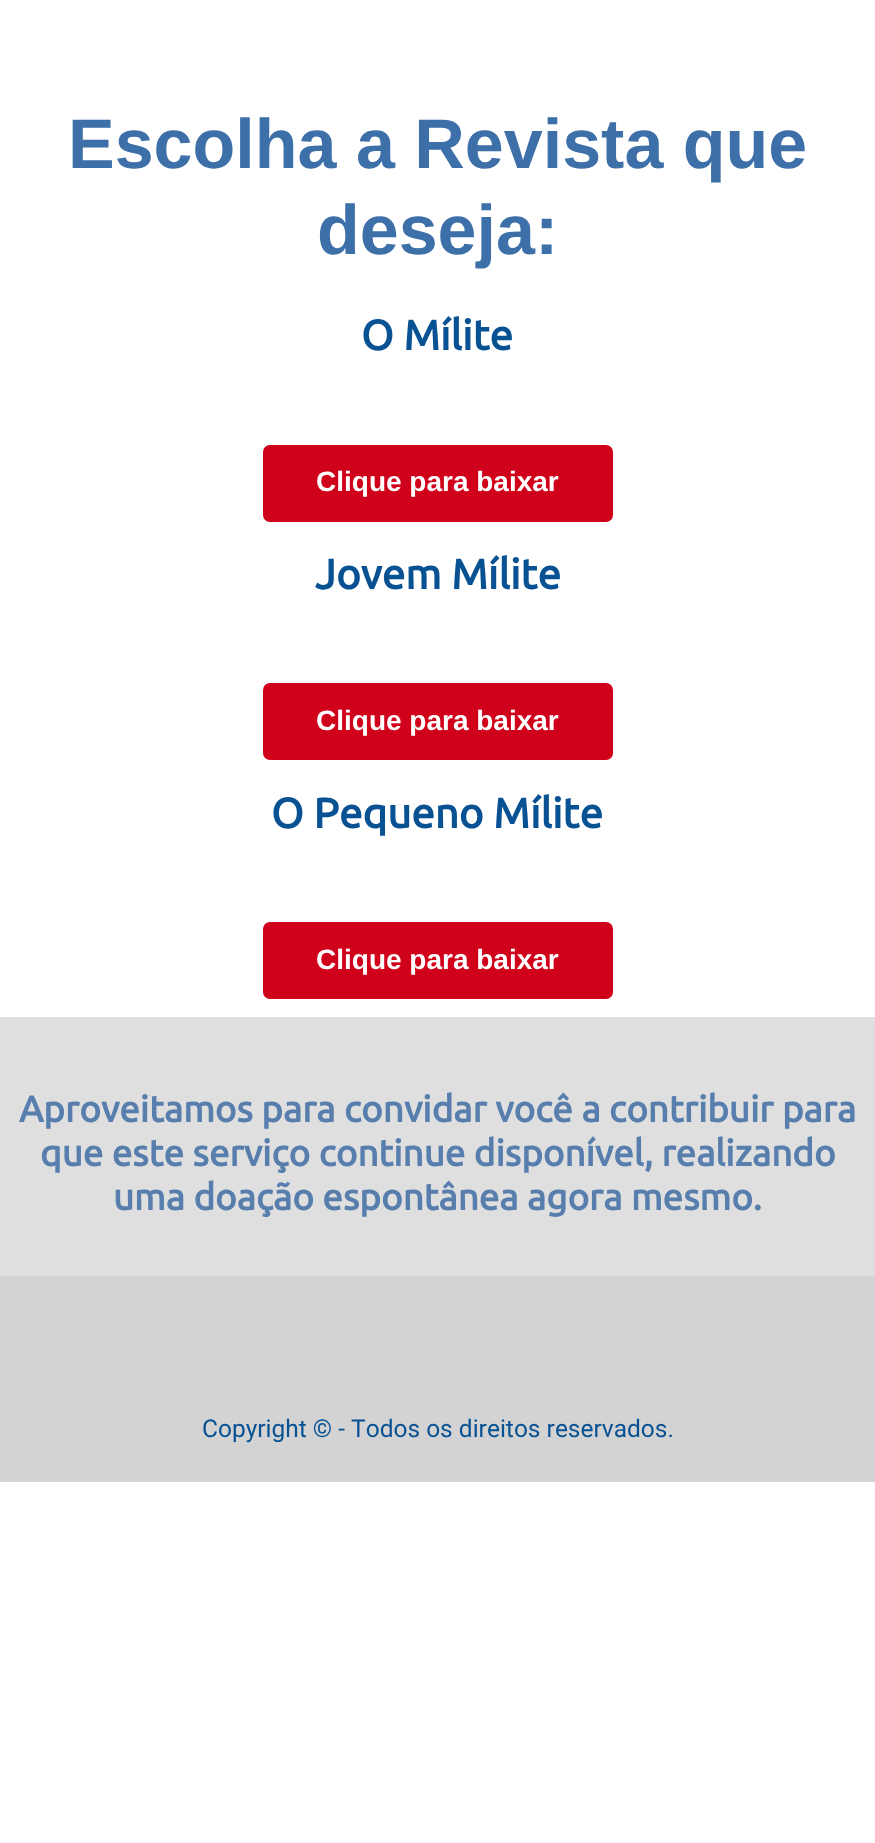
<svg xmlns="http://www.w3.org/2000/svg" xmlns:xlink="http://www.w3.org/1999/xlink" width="875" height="1843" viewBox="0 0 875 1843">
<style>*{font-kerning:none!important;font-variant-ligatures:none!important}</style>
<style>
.cls-1{font:bold 70px Liberation Sans;fill:#3d6fa8}
.cls-2{font:bold 42px Ubuntu;fill:#085294}
.cls-3{font:bold 28px Liberation Sans;fill:#ffffff}
.cls-4{font:bold 36.75px Ubuntu;fill:#577ead}
.cls-5{font:24.5px Roboto;fill:#085294}
</style>
<rect width="100%" height="100%" fill="#ffffff"/>
<rect fill="#d0021b" x="263" y="445" width="350" height="77" rx="7"/>
<rect fill="#d0021b" x="263" y="683" width="350" height="77" rx="7"/>
<rect fill="#d0021b" x="263" y="922" width="350" height="77" rx="7"/>
<rect fill="#dfdfdf" x="0" y="1017" width="875" height="259"/>
<rect fill="#d3d3d3" x="0" y="1276" width="875" height="206"/>
<text class="cls-1" x="68" y="168">Escolha a Revista que</text>
<text class="cls-1" x="317" y="254">deseja:</text>
<text class="cls-2" x="361" y="350">O Mílite</text>
<text class="cls-3" x="316" y="491">Clique para baixar</text>
<text class="cls-2" x="315" y="589">Jovem Mílite</text>
<text class="cls-3" x="316" y="730">Clique para baixar</text>
<text class="cls-2" x="271" y="828">O Pequeno Mílite</text>
<text class="cls-3" x="316" y="969">Clique para baixar</text>
<text class="cls-4" x="19" y="1122">Aproveitamos para convidar você a contribuir para</text>
<text class="cls-4" x="40" y="1166">que este serviço continue disponível, realizando</text>
<text class="cls-4" x="113" y="1210">uma doação espontânea agora mesmo.</text>
<text class="cls-5" x="202" y="1437">Copyright © - Todos os direitos reservados.</text>
</svg>
